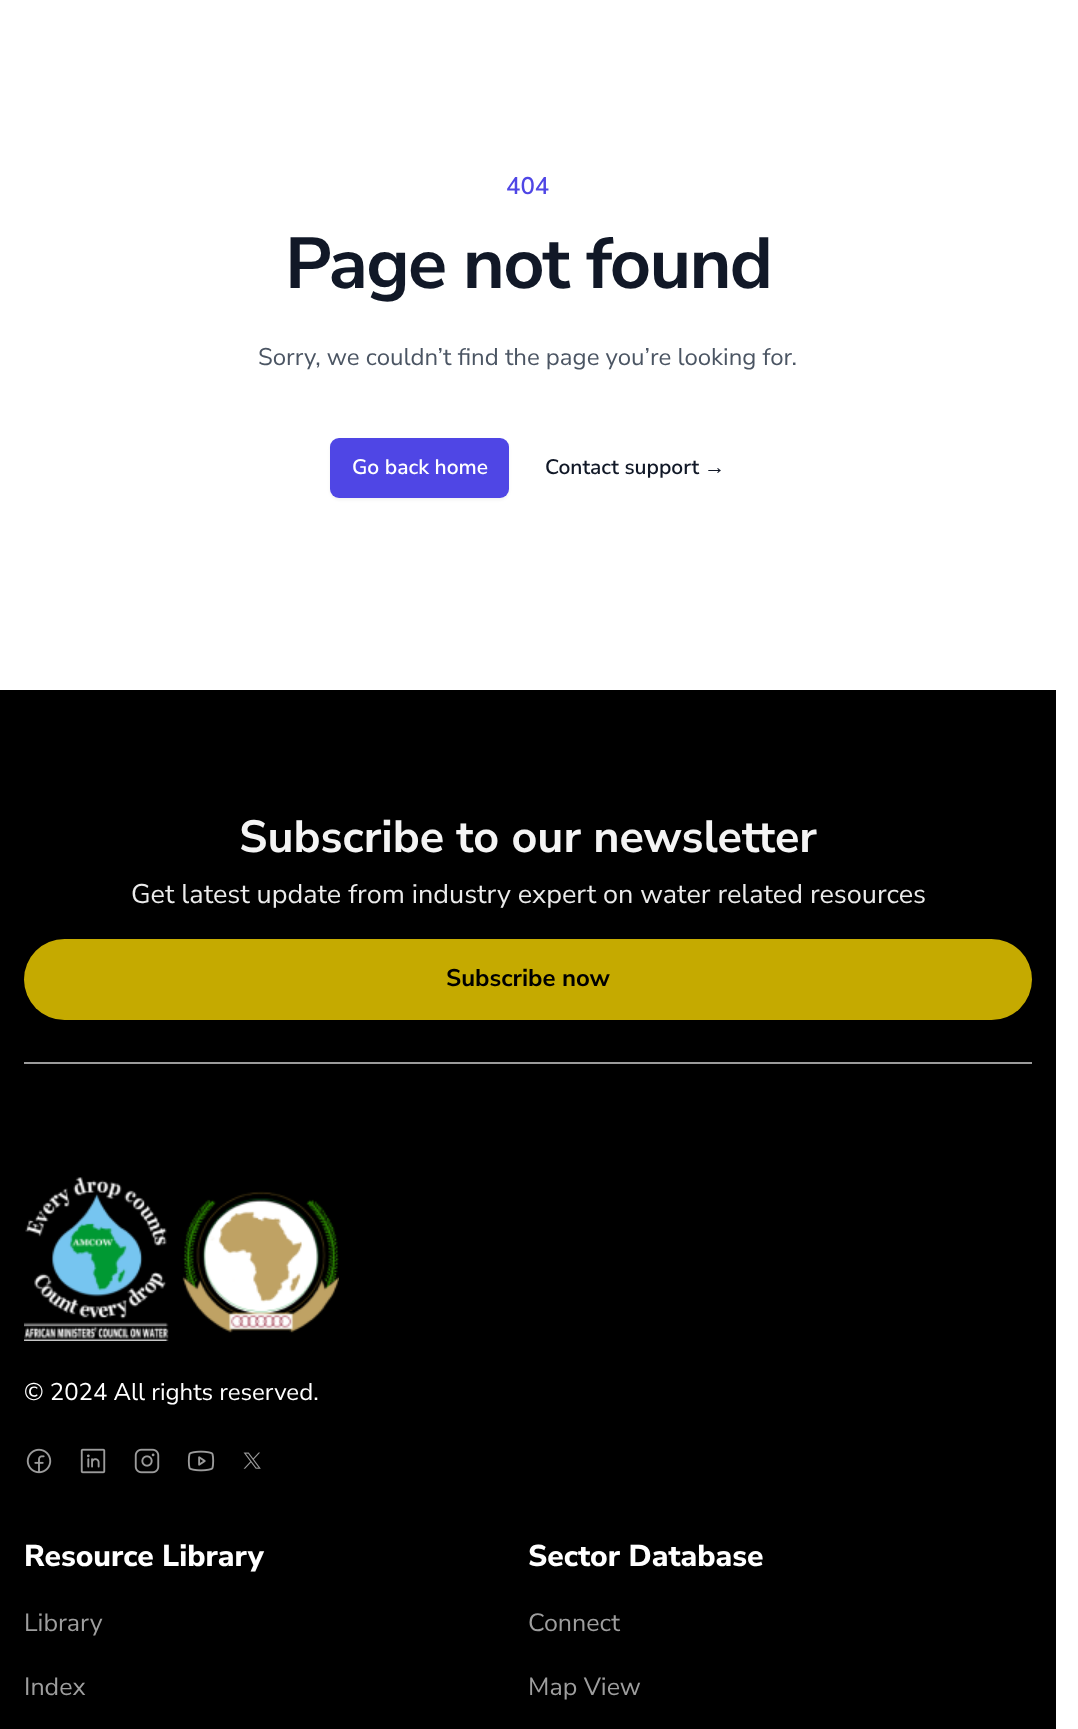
<svg xmlns="http://www.w3.org/2000/svg" xmlns:xlink="http://www.w3.org/1999/xlink" width="1078" height="1729" viewBox="0 0 1078 1729">
<style>
.cls-1{font:600 24px Nunito Sans;fill:#4f46e5}
.cls-2{font:bold 72px Nunito Sans;letter-spacing:-1.75px;fill:#111827}
.cls-3{font:24px Nunito Sans;fill:#4b5563}
.cls-4{font:600 21px Nunito Sans;fill:#ffffff}
.cls-5{font:600 21px Nunito Sans;fill:#111827}
.cls-6{font:bold 21px Liberation Sans;fill:#111827}
.cls-7{font:bold 45px Nunito Sans;fill:#f4f4f4}
.cls-8{font:27px Nunito Sans;fill:#ebebeb}
.cls-9{font:bold 24px Nunito Sans;fill:#000000}
.cls-10{font:24px Nunito Sans;fill:#ffffff}
.cls-11{font:800 30px Nunito Sans;fill:#ffffff}
.cls-12{font:25px Nunito Sans;fill:#9e9e9e}
</style>
<rect width="100%" height="100%" fill="#ffffff"/>
<rect fill="#000000" fill-opacity="0.05" filter="blur(1.5px)" x="330" y="440" width="179" height="60" rx="9"/>
<rect fill="#4f46e5" x="330" y="438" width="179" height="60" rx="9"/>
<rect fill="#000000" x="0" y="690" width="1056" height="1039"/>
<rect fill="#9b9b9b" x="24" y="1062" width="1008" height="2"/>
<rect fill="#c5aa00" x="24" y="939" width="1008" height="81" rx="40.5"/>
<image xlink:href="image0.png" x="24" y="1177" width="315" height="164"/>
<image xlink:href="image1.png" x="26" y="1448" width="26" height="26"/>
<image xlink:href="image2.png" x="80" y="1448" width="26" height="26"/>
<image xlink:href="image3.png" x="134" y="1448" width="26" height="26"/>
<image xlink:href="image4.png" x="187" y="1450" width="28" height="22"/>
<image xlink:href="image5.png" x="243" y="1452" width="18" height="17"/>
<text class="cls-1" x="506" y="194">404</text>
<text class="cls-2" x="285" y="288">Page not found</text>
<text class="cls-3" x="258" y="365">Sorry, we couldn’t find the page you’re looking for.</text>
<text class="cls-4" x="352" y="474">Go back home</text>
<text class="cls-5" x="545" y="474">Contact support</text>
<text class="cls-6" x="704" y="474">→</text>
<text class="cls-7" x="239" y="852">Subscribe to our newsletter</text>
<text class="cls-8" x="131" y="903">Get latest update from industry expert on water related resources</text>
<text class="cls-9" x="446" y="986">Subscribe now</text>
<text class="cls-10" x="24" y="1400">© 2024 All rights reserved.</text>
<text class="cls-11" x="24" y="1566">Resource Library</text>
<text class="cls-12" x="24" y="1631">Library</text>
<text class="cls-12" x="24" y="1695">Index</text>
<text class="cls-11" x="528" y="1566">Sector Database</text>
<text class="cls-12" x="528" y="1631">Connect</text>
<text class="cls-12" x="528" y="1695">Map View</text>
</svg>
